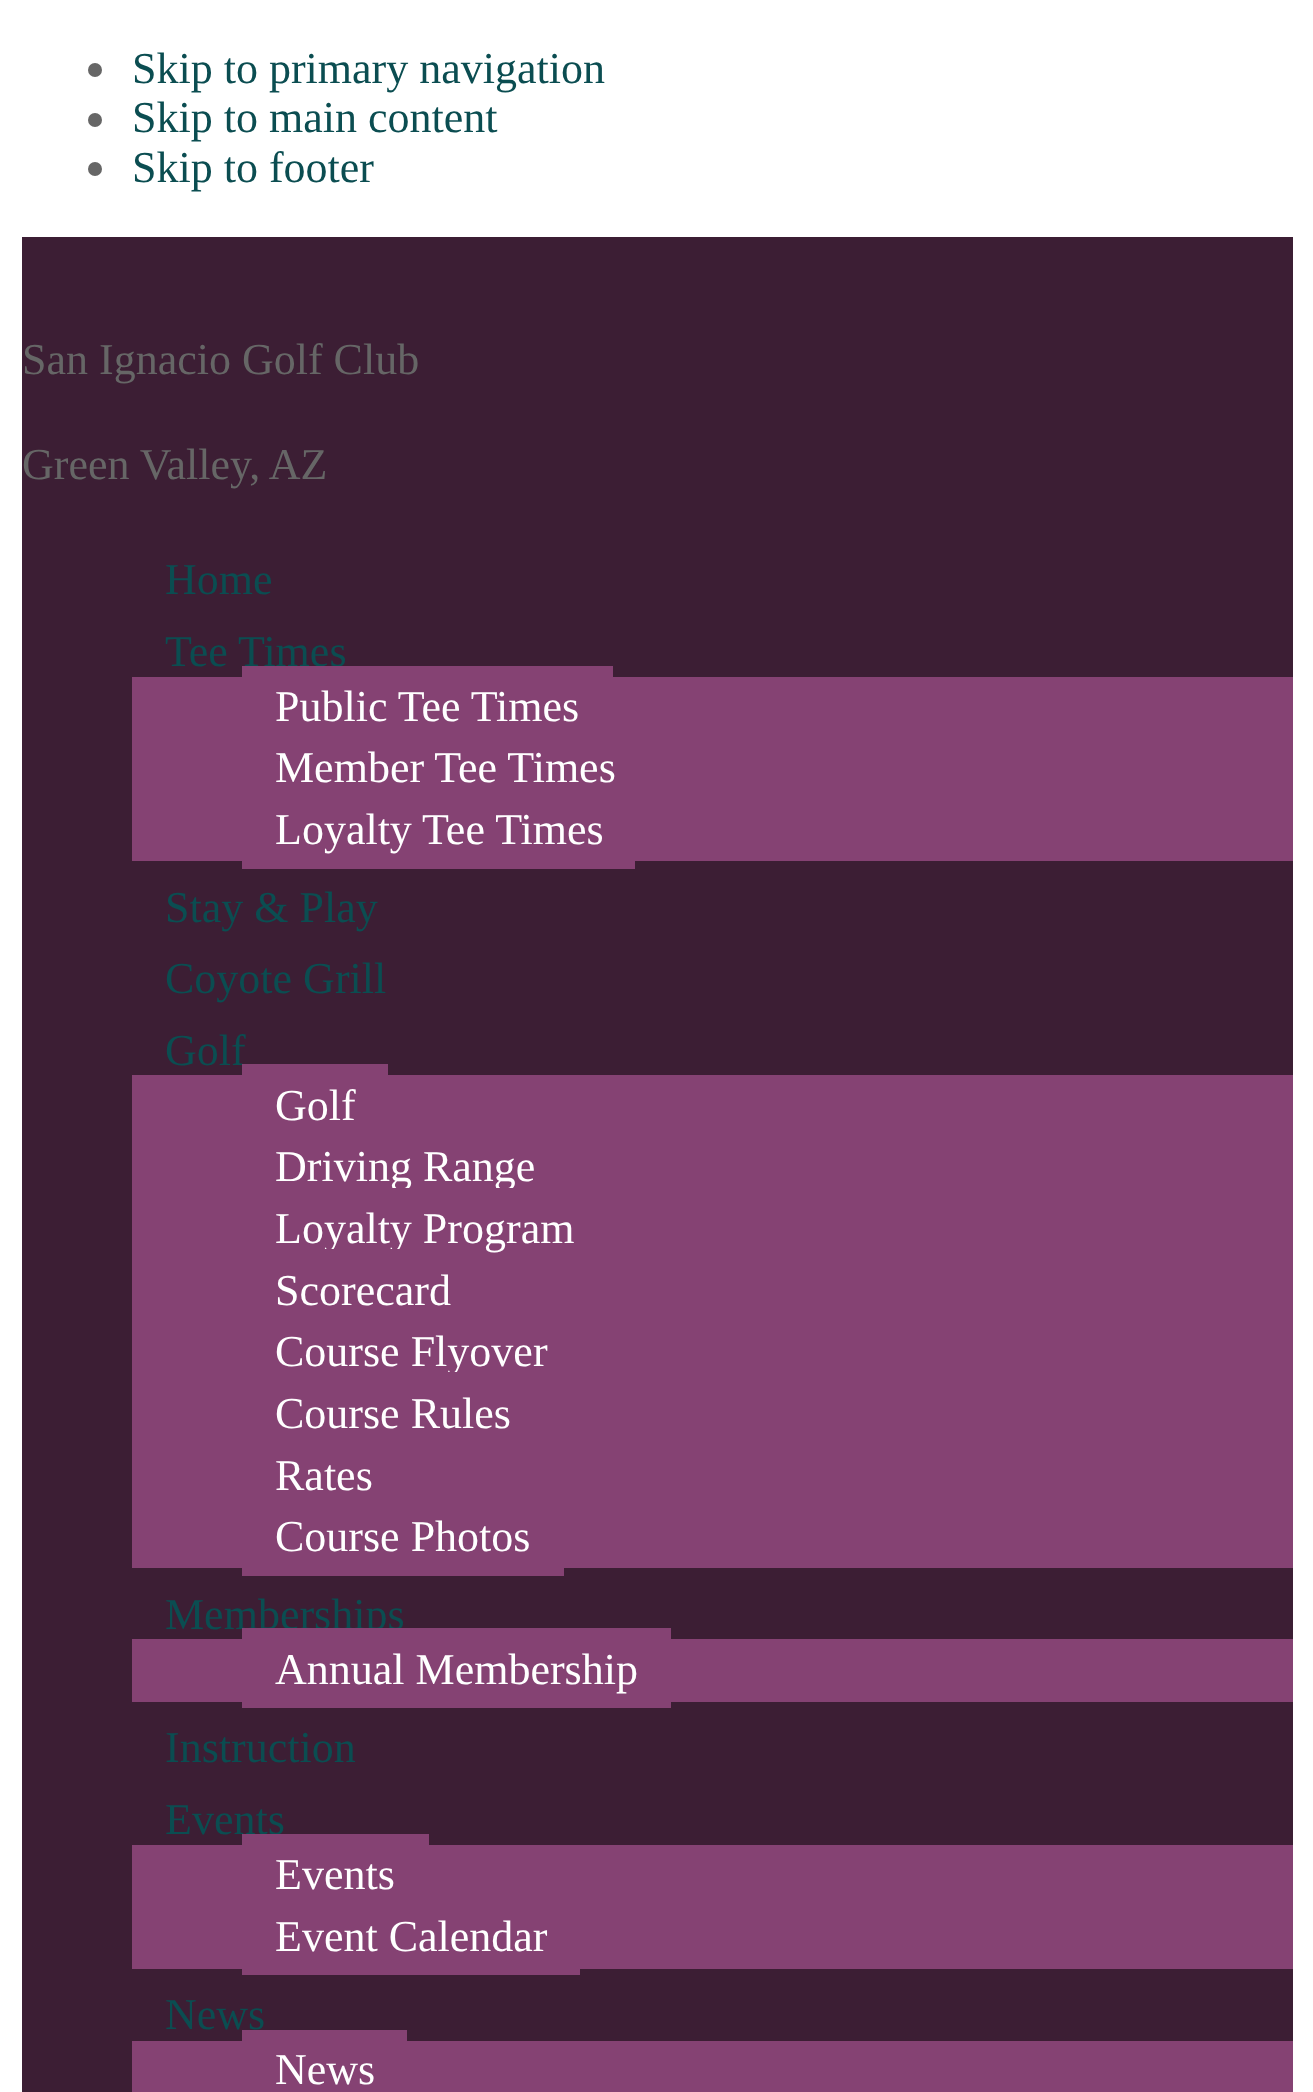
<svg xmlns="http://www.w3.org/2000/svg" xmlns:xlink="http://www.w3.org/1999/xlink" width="1313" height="2092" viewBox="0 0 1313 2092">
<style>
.cls-1{font:44px Liberation Serif;fill:#0b4d51}
.cls-2{font:44px Liberation Serif;fill:#666666}
.cls-3{font:44px Liberation Serif;fill:#ffffff}
</style>
<rect width="100%" height="100%" fill="#ffffff"/>
<circle fill="#666666" cx="95" cy="70" r="7"/>
<circle fill="#666666" cx="95" cy="120" r="7"/>
<circle fill="#666666" cx="95" cy="169" r="7"/>
<rect fill="#3c1e34" x="22" y="237" width="1271" height="1855"/>
<rect fill="#854273" x="132" y="677" width="1161" height="184"/>
<rect fill="#854273" x="242" y="861" width="393" height="8"/>
<rect fill="#854273" x="132" y="1075" width="1161" height="493"/>
<rect fill="#854273" x="242" y="1568" width="322" height="8"/>
<rect fill="#854273" x="132" y="1639" width="1161" height="63"/>
<rect fill="#854273" x="132" y="1845" width="1161" height="124"/>
<rect fill="#854273" x="242" y="1969" width="338" height="6"/>
<rect fill="#854273" x="132" y="2041" width="1161" height="51"/>
<rect fill="#854273" x="242" y="2030" width="165" height="11"/>
<text class="cls-1"><tspan x="132" y="83">Skip to primary navigation</tspan><tspan x="132" y="132">Skip to main content</tspan><tspan x="132" y="182">Skip to footer</tspan></text>
<text class="cls-2" x="22" y="374">San Ignacio Golf Club</text>
<text class="cls-2" x="22" y="479">Green Valley, AZ</text>
<text class="cls-1"><tspan x="165" y="594">Home</tspan><tspan x="165" y="666">Tee Times</tspan></text>
<text class="cls-3" x="275" y="721">Public Tee Times</text>
<rect fill="#854273" x="242" y="666" width="371" height="11"/>
<text class="cls-3"><tspan x="275" y="782">Member Tee Times</tspan><tspan x="275" y="844">Loyalty Tee Times</tspan></text>
<text class="cls-1"><tspan x="165" y="922">Stay &amp; Play</tspan><tspan x="165" y="993">Coyote Grill</tspan><tspan x="165" y="1065">Golf</tspan></text>
<text class="cls-3" x="275" y="1120">Golf</text>
<rect fill="#854273" x="242" y="1064" width="146" height="11"/>
<text class="cls-3"><tspan x="275" y="1181">Driving Range</tspan><tspan x="275" y="1243">Loyalty Program</tspan></text>
<rect fill="#854273" x="392" y="1188" width="121" height="3"/>
<text class="cls-3" x="275" y="1305">Scorecard</text>
<rect fill="#854273" x="324" y="1249" width="76" height="4"/>
<text class="cls-3"><tspan x="275" y="1366">Course Flyover</tspan><tspan x="275" y="1428">Course Rules</tspan></text>
<rect fill="#854273" x="448" y="1372" width="9" height="4"/>
<text class="cls-3"><tspan x="275" y="1490">Rates</tspan><tspan x="275" y="1551">Course Photos</tspan></text>
<text class="cls-1" x="165" y="1629">Memberships</text>
<rect fill="#854273" x="242" y="1628" width="429" height="80"/>
<text class="cls-3" x="275" y="1684">Annual Membership</text>
<text class="cls-1"><tspan x="165" y="1762">Instruction</tspan><tspan x="165" y="1834">Events</tspan></text>
<text class="cls-3" x="275" y="1889">Events</text>
<rect fill="#854273" x="242" y="1834" width="187" height="11"/>
<text class="cls-3" x="275" y="1951">Event Calendar</text>
<text class="cls-1" x="165" y="2029">News</text>
<text class="cls-3" x="275" y="2084">News</text>
</svg>
